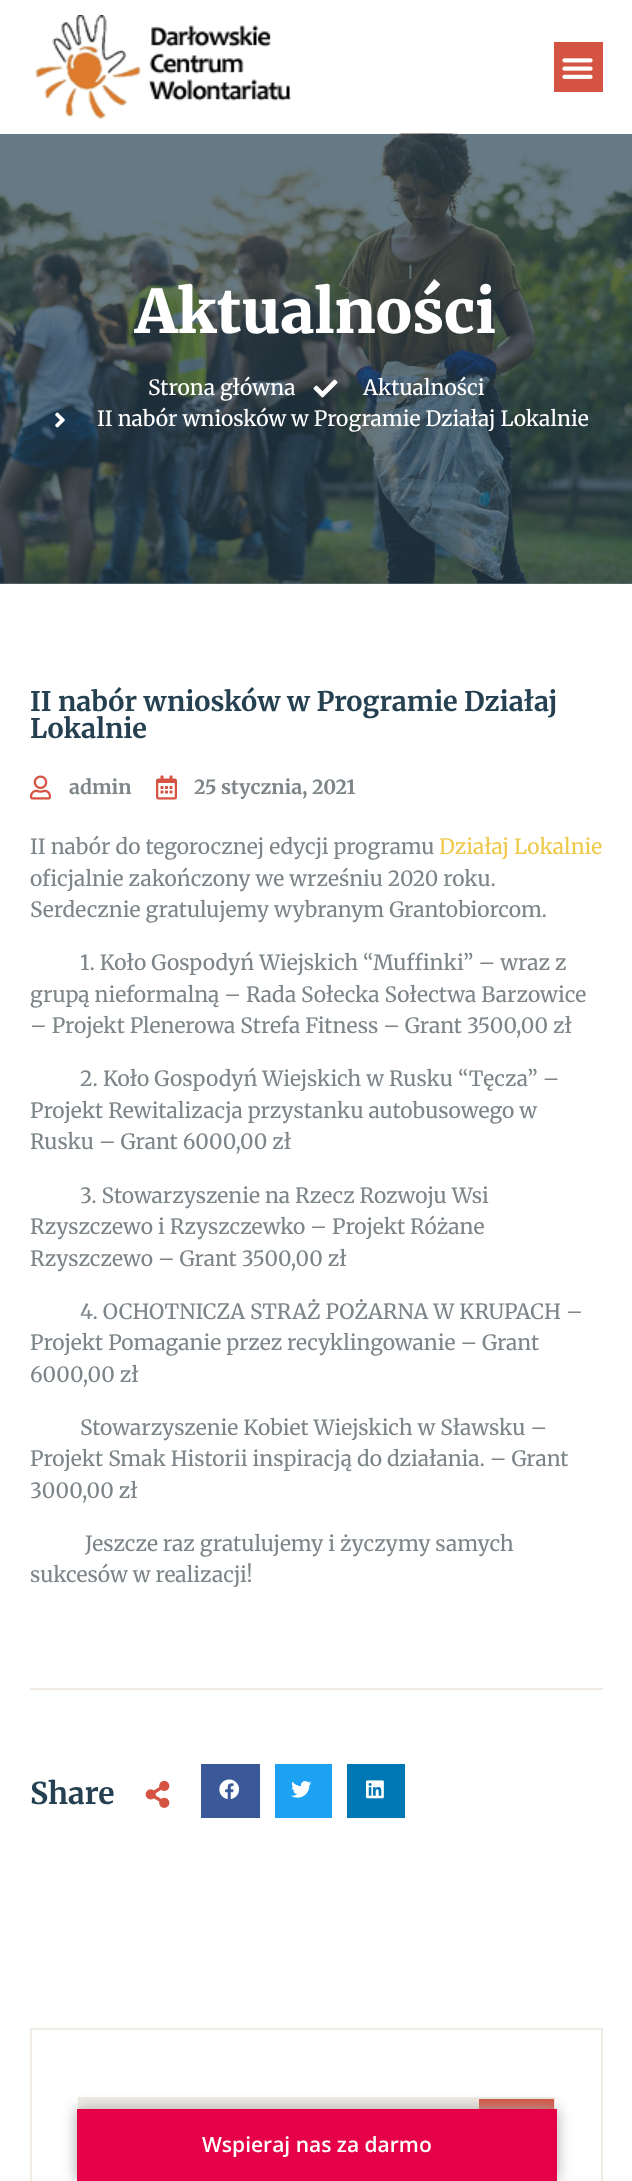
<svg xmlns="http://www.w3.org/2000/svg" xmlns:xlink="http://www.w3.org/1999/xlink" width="632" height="2181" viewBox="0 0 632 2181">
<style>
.cls-1{font:900 60px Merriweather;fill:#ffffff}
.cls-2{font:21px Merriweather;fill:#ffffff}
.cls-3{font:bold 27px Merriweather;fill:#254151}
.cls-4{font:bold 19.5px Merriweather;fill:#7d8589}
.cls-5{font:21px Merriweather;fill:#7d8589}
.cls-6{font:21px Merriweather;fill:#efc94c}
.cls-7{font:bold 30px Merriweather;fill:#254151}
.cls-8{font:600 21px Open Sans;fill:#ffffff}
</style>
<rect width="100%" height="100%" fill="#ffffff"/>
<rect fill="#667a85" x="0" y="583" width="632" height="1"/>
<image xlink:href="image0.png" x="35" y="15" width="257" height="104"/>
<rect fill="#d55342" x="554" y="42" width="49" height="50"/>
<image xlink:href="image1.png" x="562" y="58" width="31" height="21"/>
<image xlink:href="image2.png" x="0" y="133" width="632" height="451"/>
<image xlink:href="image3.png" x="313" y="379" width="25" height="19"/>
<image xlink:href="image4.png" x="55" y="412" width="10" height="16"/>
<image xlink:href="image5.png" x="30" y="775" width="21" height="25"/>
<image xlink:href="image6.png" x="156" y="775" width="21" height="25"/>
<rect fill="#f0ece3" x="30" y="1688" width="573" height="2"/>
<image xlink:href="image7.png" x="145" y="1780" width="25" height="28"/>
<rect fill="none" stroke="#3b5998" stroke-width="3" x="202.5" y="1765.5" width="56" height="51"/>
<rect fill="#3b5998" x="204" y="1767" width="53" height="48"/>
<image xlink:href="image8.png" x="219" y="1779" width="21" height="21"/>
<rect fill="none" stroke="#1da1f2" stroke-width="3" x="276.5" y="1765.5" width="54" height="51"/>
<rect fill="#1da1f2" x="278" y="1767" width="51" height="48"/>
<image xlink:href="image9.png" x="291" y="1781" width="21" height="17"/>
<rect fill="none" stroke="#0077b5" stroke-width="3" x="348.5" y="1765.5" width="55" height="51"/>
<rect fill="#0077b5" x="350" y="1767" width="52" height="48"/>
<image xlink:href="image10.png" x="366" y="1780" width="18" height="19"/>
<rect fill="none" stroke="#f0ece3" stroke-width="2" x="31" y="2029" width="571" height="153"/>
<rect fill="#f0ece3" x="78" y="2097" width="477" height="12"/>
<rect fill="#d55342" x="479" y="2099" width="75" height="10"/>
<rect fill="#aaaaaa" filter="blur(7.5px)" x="77" y="2109" width="480" height="72"/>
<rect fill="#e50048" x="77" y="2109" width="480" height="72"/>
<text class="cls-1" x="135" y="333">Aktualności</text>
<text class="cls-2" x="148" y="395">Strona główna</text>
<text class="cls-2" x="363" y="395">Aktualności</text>
<text class="cls-2" x="97" y="426">II nabór wniosków w Programie Działaj Lokalnie</text>
<text class="cls-3"><tspan x="30" y="711">II nabór wniosków w Programie Działaj</tspan><tspan x="30" y="738">Lokalnie</tspan></text>
<text class="cls-4" x="69" y="794">admin</text>
<text class="cls-4" x="194" y="794">25 stycznia, 2021</text>
<text class="cls-5" x="30" y="854">II nabór do tegorocznej edycji programu</text>
<text class="cls-6" x="439" y="854">Działaj Lokalnie</text>
<text class="cls-5"><tspan x="30" y="886">oficjalnie zakończony we wrześniu 2020 roku.</tspan><tspan x="30" y="917">Serdecznie gratulujemy wybranym Grantobiorcom.</tspan></text>
<text class="cls-5" x="80" y="970">1. Koło Gospodyń Wiejskich “Muffinki” – wraz z</text>
<text class="cls-5"><tspan x="30" y="1002">grupą nieformalną – Rada Sołecka Sołectwa Barzowice</tspan><tspan x="30" y="1033">– Projekt Plenerowa Strefa Fitness – Grant 3500,00 zł</tspan></text>
<text class="cls-5" x="80" y="1086">2. Koło Gospodyń Wiejskich w Rusku “Tęcza” –</text>
<text class="cls-5"><tspan x="30" y="1118">Projekt Rewitalizacja przystanku autobusowego w</tspan><tspan x="30" y="1149">Rusku – Grant 6000,00 zł</tspan></text>
<text class="cls-5" x="80" y="1203">3. Stowarzyszenie na Rzecz Rozwoju Wsi</text>
<text class="cls-5"><tspan x="30" y="1234">Rzyszczewo i Rzyszczewko – Projekt Różane</tspan><tspan x="30" y="1266">Rzyszczewo – Grant 3500,00 zł</tspan></text>
<text class="cls-5" x="80" y="1319">4. OCHOTNICZA STRAŻ POŻARNA W KRUPACH –</text>
<text class="cls-5"><tspan x="30" y="1350">Projekt Pomaganie przez recyklingowanie – Grant</tspan><tspan x="30" y="1382">6000,00 zł</tspan></text>
<text class="cls-5" x="80" y="1435">Stowarzyszenie Kobiet Wiejskich w Sławsku –</text>
<text class="cls-5"><tspan x="30" y="1466">Projekt Smak Historii inspiracją do działania. – Grant</tspan><tspan x="30" y="1498">3000,00 zł</tspan></text>
<text class="cls-5" x="85" y="1551">Jeszcze raz gratulujemy i życzymy samych</text>
<text class="cls-5" x="30" y="1582">sukcesów w realizacji!</text>
<text class="cls-7" x="30" y="1804">Share</text>
<text class="cls-8" x="202" y="2152">Wspieraj nas za darmo</text>
</svg>
